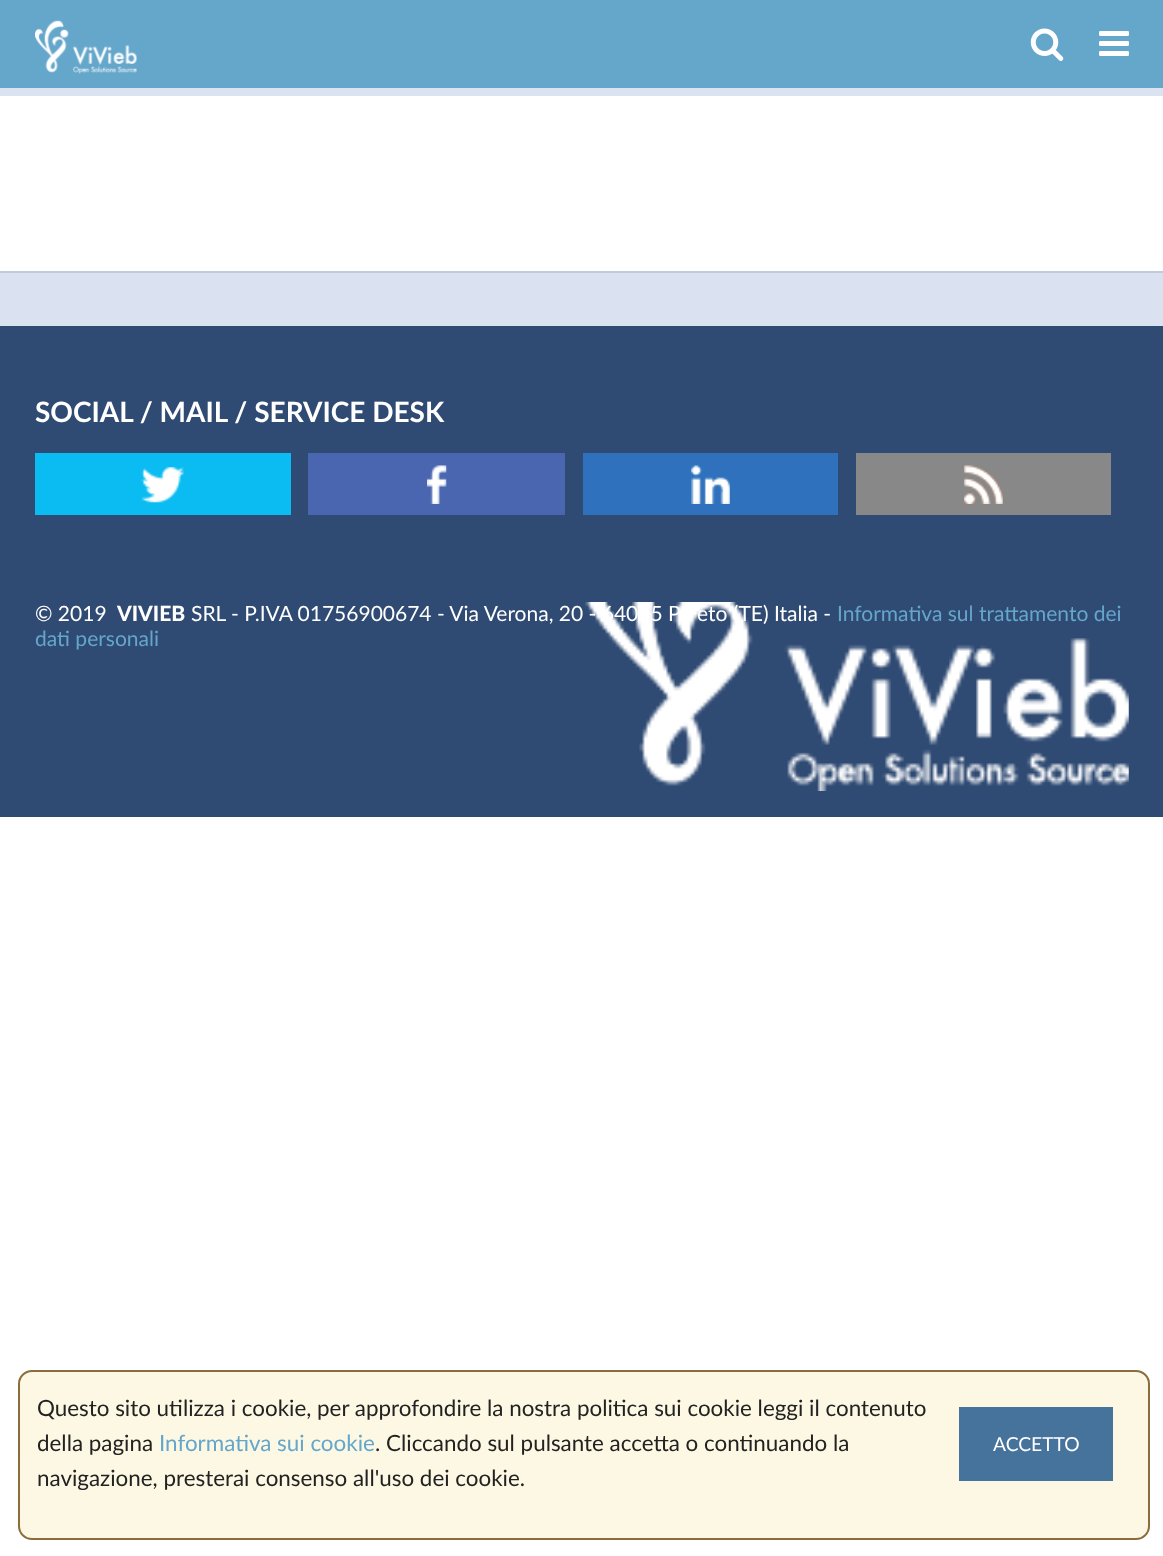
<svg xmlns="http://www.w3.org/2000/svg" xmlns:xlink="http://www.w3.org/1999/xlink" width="1163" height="1556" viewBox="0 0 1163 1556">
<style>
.cls-1{font:bold 28px Lato;fill:#ffffff}
.cls-2{font:21px Lato;fill:#ffffff}
.cls-3{font:900 21px Lato;fill:#ffffff}
.cls-4{font:21px Lato;fill:#65a6cb}
.cls-5{font:22.4px Lato;fill:#222222}
.cls-6{font:22.4px Lato;fill:#65a6cb}
.cls-7{font:19.25px Lato;fill:#ffffff}
</style>
<rect width="100%" height="100%" fill="#ffffff"/>
<rect fill="#dbe2f0" x="0" y="88" width="1163" height="8"/>
<rect fill="#65a6cb" x="0" y="0" width="1163" height="88"/>
<image xlink:href="image0.png" x="35" y="20" width="102" height="54"/>
<image xlink:href="image1.png" x="1030" y="28" width="34" height="33"/>
<image xlink:href="image2.png" x="1099" y="31" width="30" height="25"/>
<rect fill="#304b73" x="0" y="326" width="1163" height="491"/>
<rect fill="#dae1f0" x="0" y="273" width="1163" height="53"/>
<rect fill="#0abcf2" x="35" y="453" width="256" height="62"/>
<image xlink:href="image3.png" x="141" y="467" width="43" height="36"/>
<rect fill="#4a66b1" x="308" y="453" width="257" height="62"/>
<image xlink:href="image4.png" x="427" y="465" width="20" height="39"/>
<rect fill="#3071bd" x="583" y="453" width="255" height="62"/>
<image xlink:href="image5.png" x="691" y="465" width="39" height="39"/>
<rect fill="#888888" x="856" y="453" width="255" height="62"/>
<image xlink:href="image6.png" x="964" y="465" width="39" height="39"/>
<image xlink:href="image7.png" x="585" y="602" width="544" height="189"/>
<rect fill="#c1cbdd" x="0" y="271" width="1163" height="2"/>
<rect fill="#fcf8e3" stroke="#8a6d3b" stroke-width="2" x="19" y="1371" width="1130" height="168" rx="13"/>
<rect fill="#46739c" x="959" y="1407" width="154" height="74"/>
<text class="cls-1" x="35" y="422">SOCIAL / MAIL / SERVICE DESK</text>
<text class="cls-2" x="35" y="621">© 2019</text>
<text class="cls-3" x="117" y="621">VIVIEB</text>
<text class="cls-2" x="191" y="621">SRL - P.IVA 01756900674 - Via Verona, 20 - 64025 P</text>
<text class="cls-2" x="697" y="621">eto (TE) Italia -</text>
<text class="cls-4" x="837" y="621">Informativa sul trattamento dei</text>
<text class="cls-4" x="35" y="646">dati personali</text>
<text class="cls-5"><tspan x="37" y="1416">Questo sito utilizza i cookie, per approfondire la nostra politica sui cookie leggi il contenuto</tspan><tspan x="37" y="1451">della pagina</tspan></text>
<text class="cls-6" x="159" y="1451">Informativa sui cookie</text>
<text class="cls-5" x="375" y="1451">. Cliccando sul pulsante accetta o continuando la</text>
<text class="cls-5" x="37" y="1486">navigazione, presterai consenso all'uso dei cookie.</text>
<text class="cls-7" x="993" y="1451">ACCETTO</text>
</svg>
